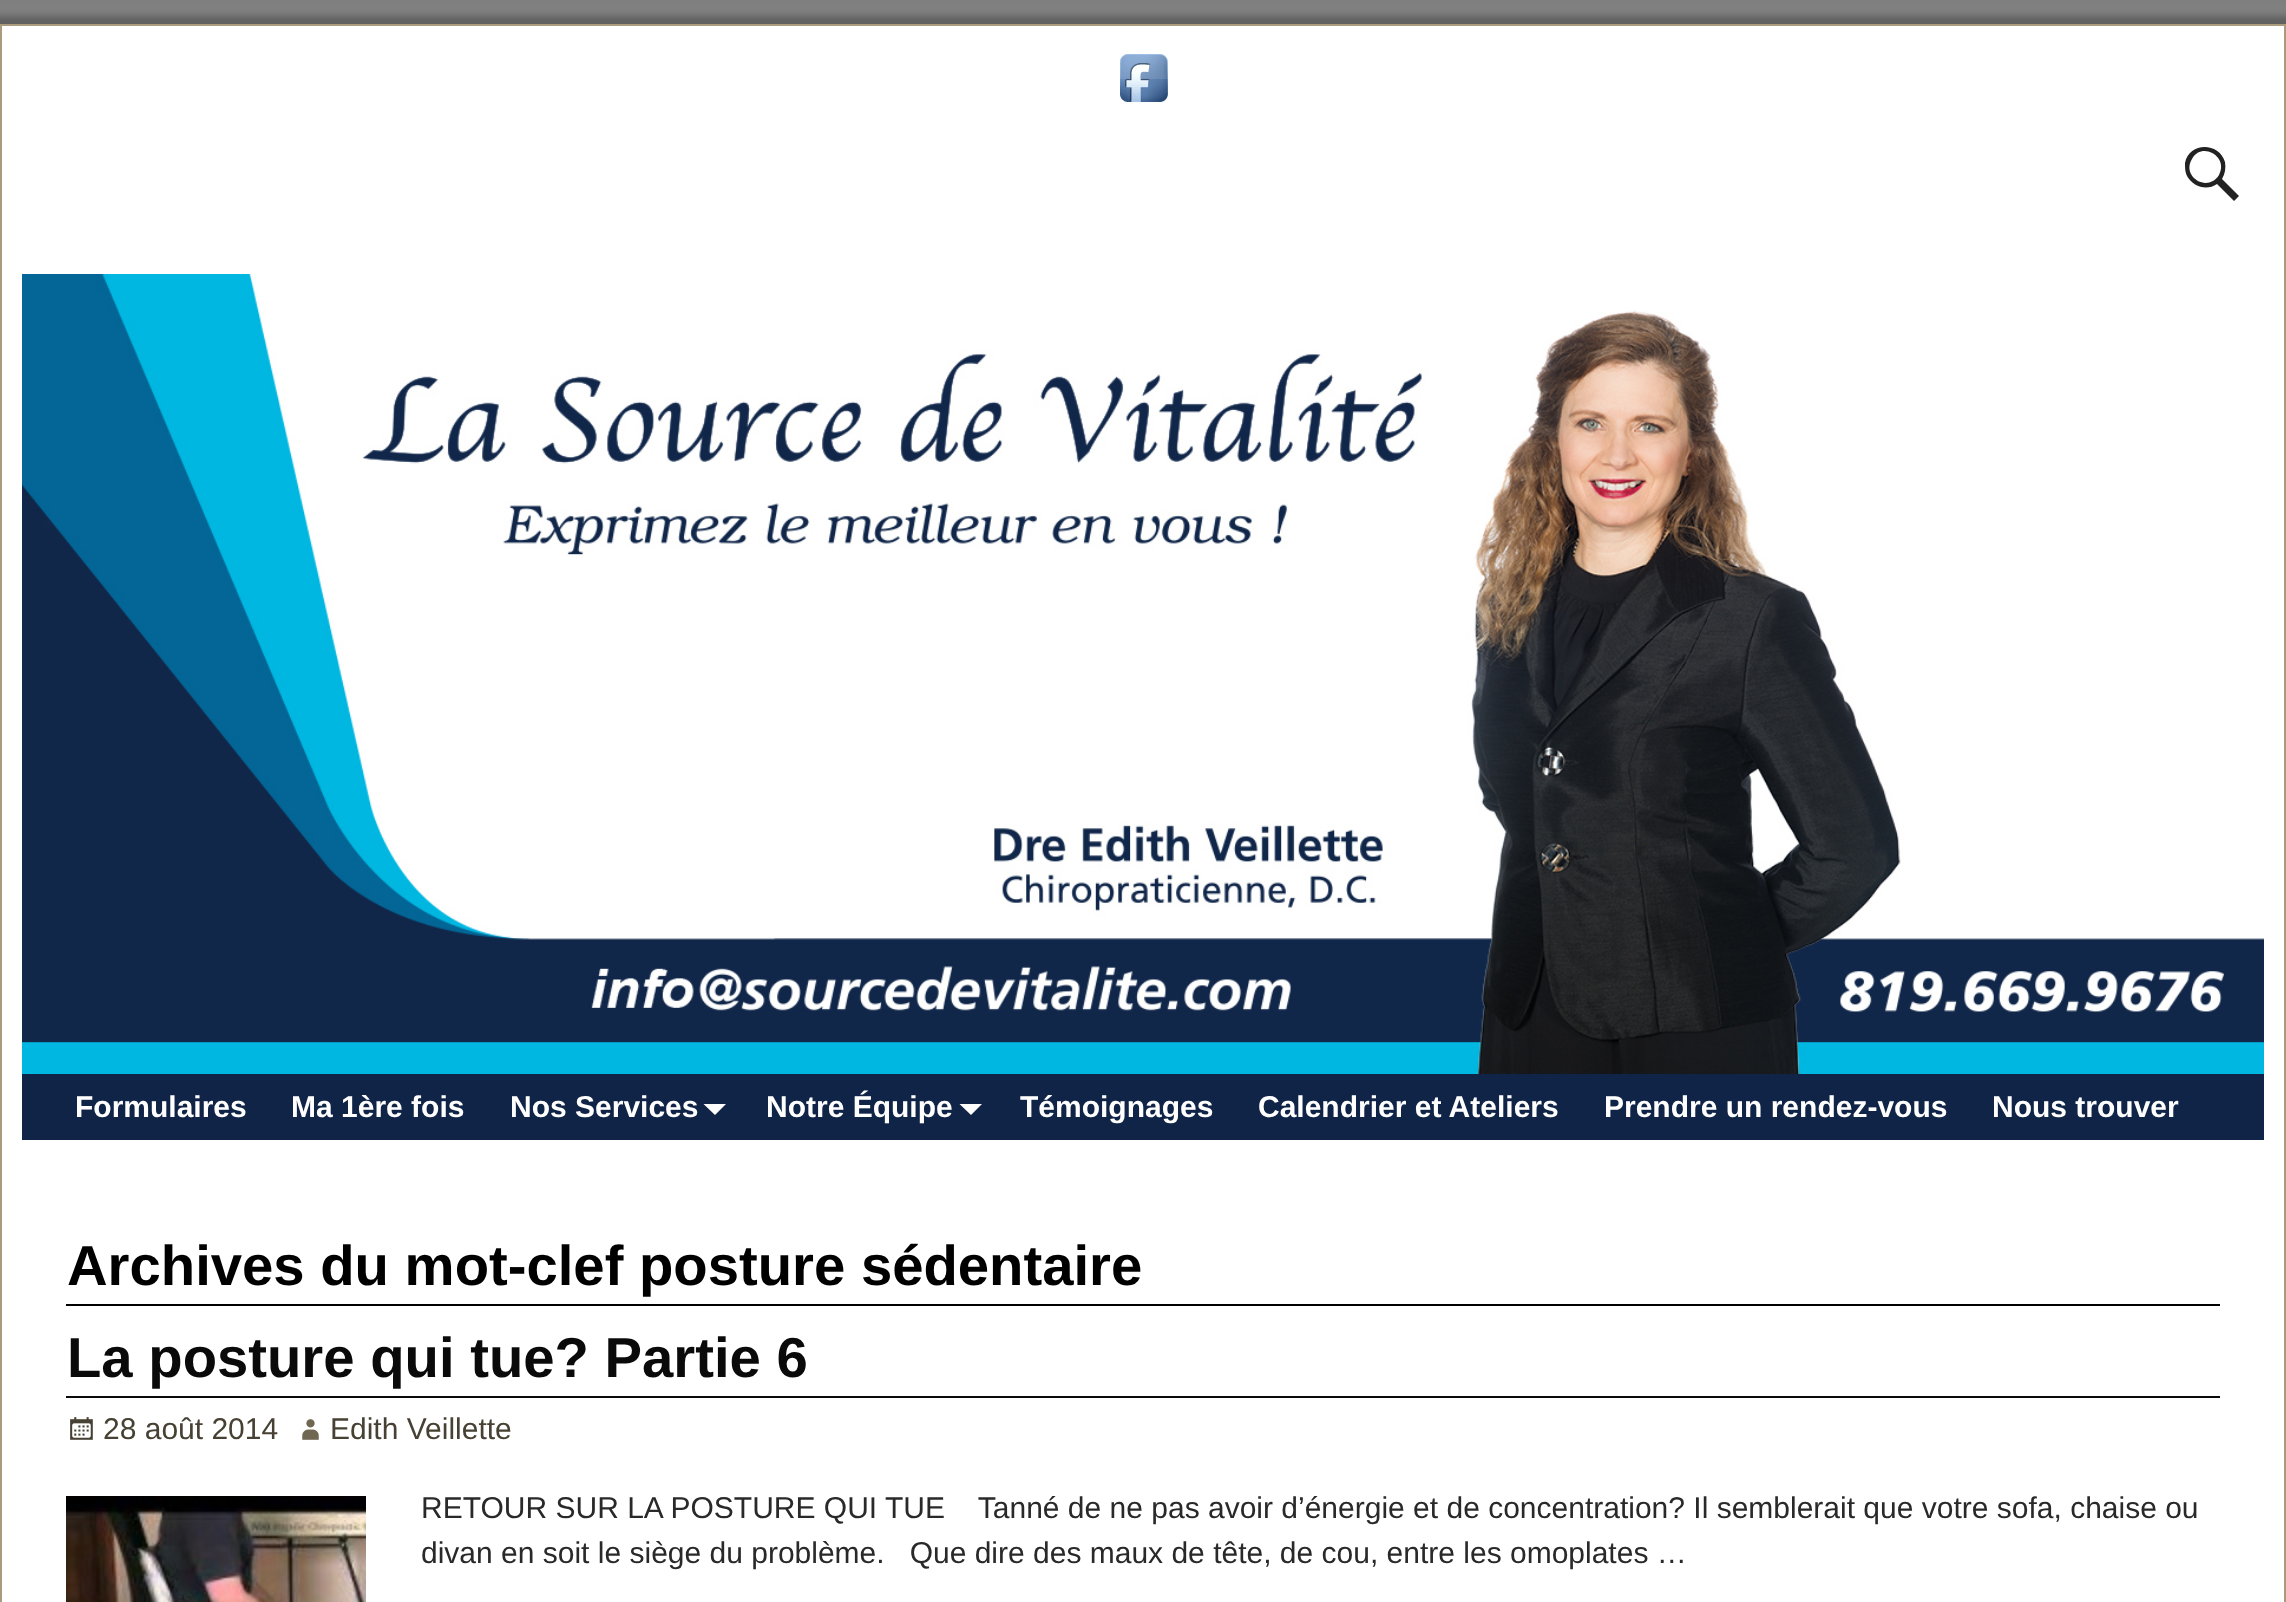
<svg xmlns="http://www.w3.org/2000/svg" xmlns:xlink="http://www.w3.org/1999/xlink" width="2286" height="1602" viewBox="0 0 2286 1602">
<style>
.cls-1{font:bold 30px Liberation Sans;fill:#ffffff}
.cls-2{font:bold 56.25px Liberation Sans;fill:#000000}
.cls-3{font:bold 56.25px Liberation Sans;fill:#0a0a0a}
.cls-4{font:30px Liberation Sans;fill:#474134}
.cls-5{font:30px Liberation Sans;fill:#292929}
</style>
<rect width="100%" height="100%" fill="#ffffff"/>
<image xlink:href="image0.png" x="0" y="0" width="2286" height="24"/>
<rect fill="#000000" fill-opacity="0.25" filter="blur(3px)" x="-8" y="16" width="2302" height="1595"/>
<rect fill="#ffffff" stroke="#ab9b7d" stroke-width="2" x="1" y="25" width="2284" height="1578"/>
<image xlink:href="image1.png" x="1120" y="54" width="48" height="48"/>
<path fill="#222222" d="M2239 196L2234 201L2217 184C2207 191 2193 187 2187 176C2185 172 2185 168 2185 163C2189 142 2219 142 2225 162C2226 168 2225 174 2222 179ZM2192 159C2181 177 2208 193 2219 175C2229 157 2202 141 2192 159Z"/>
<image xlink:href="image2.png" x="22" y="274" width="2242" height="800"/>
<rect fill="#102447" x="22" y="1074" width="2242" height="66"/>
<path fill="#ffffff" d="M703.5 1104H726L715 1115Z"/>
<path fill="#ffffff" d="M959.5 1104H982L971 1115Z"/>
<rect fill="#000000" x="66" y="1304" width="2154" height="2"/>
<rect fill="#0a0a0a" x="66" y="1396" width="2154" height="2"/>
<image xlink:href="image3.png" x="70" y="1417" width="23" height="23"/>
<image xlink:href="image4.png" x="302" y="1419" width="17" height="21"/>
<image xlink:href="image5.png" x="66" y="1496" width="300" height="106"/>
<text class="cls-1" x="75" y="1117">Formulaires</text>
<text class="cls-1" x="291" y="1117">Ma 1ère fois</text>
<text class="cls-1" x="510" y="1117">Nos Services</text>
<text class="cls-1" x="766" y="1117">Notre Équipe</text>
<text class="cls-1" x="1020" y="1117">Témoignages</text>
<text class="cls-1" x="1258" y="1117">Calendrier et Ateliers</text>
<text class="cls-1" x="1604" y="1117">Prendre un rendez-vous</text>
<text class="cls-1" x="1992" y="1117">Nous trouver</text>
<text class="cls-2" x="67" y="1285">Archives du mot-clef</text>
<text class="cls-2" x="639" y="1285">posture sédentaire</text>
<text class="cls-3" x="67" y="1377">La posture qui tue? Partie 6</text>
<text class="cls-4" x="103" y="1439">28 août 2014</text>
<text class="cls-4" x="330" y="1439">Edith Veillette</text>
<text class="cls-5" xml:space="preserve"><tspan x="421" y="1518">RETOUR SUR LA POSTURE QUI TUE    Tanné de ne pas avoir d’énergie et de concentration? Il semblerait que votre sofa, chaise ou</tspan><tspan x="421" y="1563">divan en soit le siège du problème.   Que dire des maux de tête, de cou, entre les omoplates …</tspan></text>
</svg>
